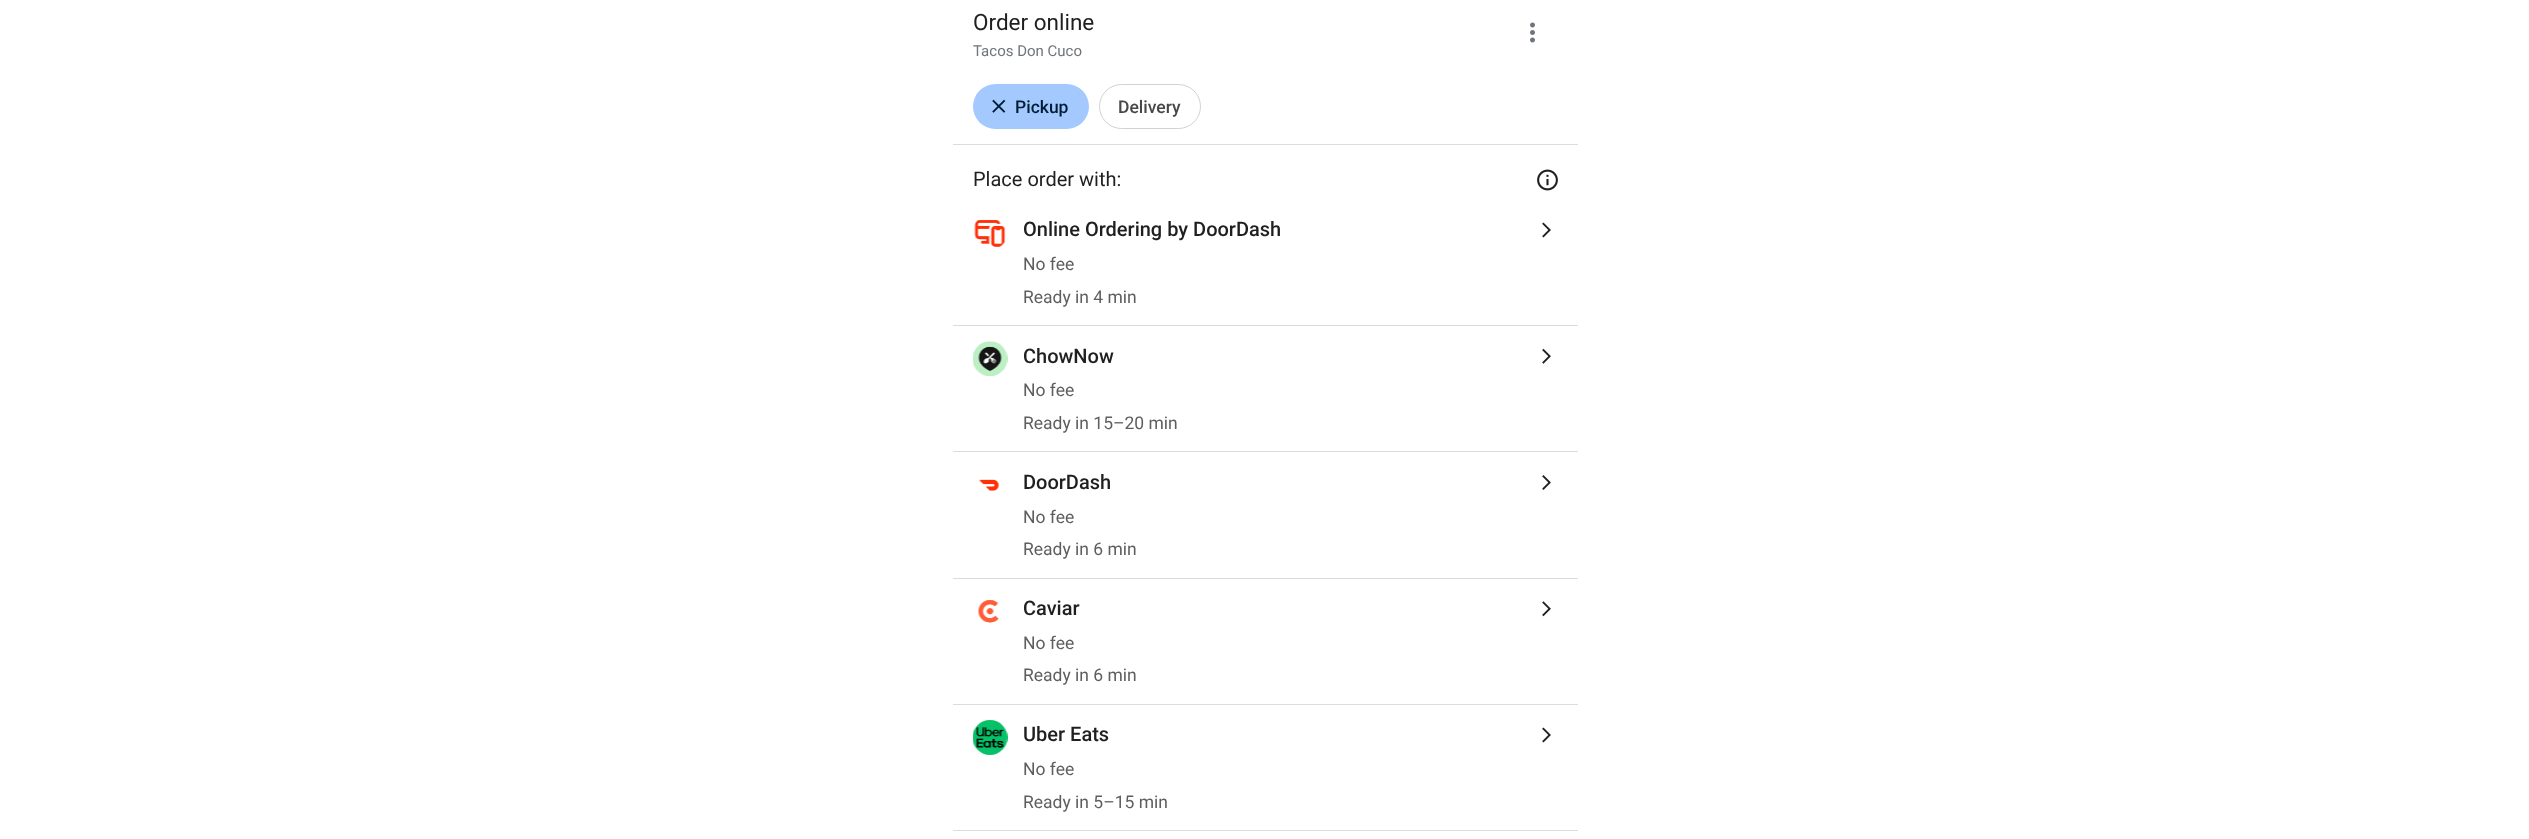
<svg xmlns="http://www.w3.org/2000/svg" xmlns:xlink="http://www.w3.org/1999/xlink" width="2529" height="839" viewBox="0 0 2529 839">
<style>
.cls-1{font:22.5px Roboto;fill:#1f1f1f}
.cls-2{font:15px Roboto;fill:#70757a}
.cls-3{font:500 17.5px Roboto;fill:#001d35}
.cls-4{font:500 17.5px Roboto;fill:#474747}
.cls-5{font:20px Roboto;fill:#1f1f1f}
.cls-6{font:500 20px Roboto;fill:#1f1f1f}
.cls-7{font:17.5px Roboto;fill:#5e5e5e}
</style>
<rect width="100%" height="100%" fill="#ffffff"/>
<image xlink:href="image0.png" x="1530" y="22" width="5" height="21"/>
<rect fill="#a3c9ff" x="973" y="84" width="116" height="45" rx="22.5"/>
<image xlink:href="image1.png" x="992" y="99" width="14" height="14"/>
<rect fill="none" stroke="#d2d2d2" x="1099.5" y="84.5" width="101" height="44" rx="22"/>
<rect fill="#dadce0" x="953" y="144" width="625" height="1"/>
<image xlink:href="image2.png" x="1537" y="169" width="21" height="22"/>
<image xlink:href="image3.png" x="974" y="220" width="32" height="27"/>
<image xlink:href="image4.png" x="1542" y="222" width="9" height="16"/>
<rect fill="#dadce0" x="953" y="325" width="625" height="1"/>
<image xlink:href="image5.png" x="973" y="341" width="35" height="35"/>
<image xlink:href="image6.png" x="1542" y="348" width="9" height="16"/>
<rect fill="#dadce0" x="953" y="451" width="625" height="1"/>
<image xlink:href="image7.png" x="979" y="479" width="21" height="12"/>
<image xlink:href="image8.png" x="1542" y="475" width="9" height="15"/>
<rect fill="#dadce0" x="953" y="578" width="625" height="1"/>
<image xlink:href="image9.png" x="978" y="600" width="21" height="23"/>
<image xlink:href="image10.png" x="1542" y="601" width="9" height="16"/>
<rect fill="#dadce0" x="953" y="704" width="625" height="1"/>
<image xlink:href="image11.png" x="973" y="720" width="35" height="35"/>
<image xlink:href="image4.png" x="1542" y="727" width="9" height="16"/>
<rect fill="#dadce0" x="953" y="830" width="625" height="1"/>
<text class="cls-1" x="973" y="30">Order online</text>
<text class="cls-2" x="973" y="56">Tacos Don Cuco</text>
<text class="cls-3" x="1015" y="113">Pickup</text>
<text class="cls-4" x="1118" y="113">Delivery</text>
<text class="cls-5" x="973" y="186">Place order with:</text>
<text class="cls-6" x="1023" y="236">Online Ordering by DoorDash</text>
<text class="cls-7"><tspan x="1023" y="270">No fee</tspan><tspan x="1023" y="303">Ready in 4 min</tspan></text>
<text class="cls-6" x="1023" y="363">ChowNow</text>
<text class="cls-7"><tspan x="1023" y="396">No fee</tspan><tspan x="1023" y="429">Ready in 15–20 min</tspan></text>
<text class="cls-6" x="1023" y="489">DoorDash</text>
<text class="cls-7"><tspan x="1023" y="523">No fee</tspan><tspan x="1023" y="555">Ready in 6 min</tspan></text>
<text class="cls-6" x="1023" y="615">Caviar</text>
<text class="cls-7"><tspan x="1023" y="649">No fee</tspan><tspan x="1023" y="681">Ready in 6 min</tspan></text>
<text class="cls-6" x="1023" y="741">Uber Eats</text>
<text class="cls-7"><tspan x="1023" y="775">No fee</tspan><tspan x="1023" y="808">Ready in 5–15 min</tspan></text>
</svg>
